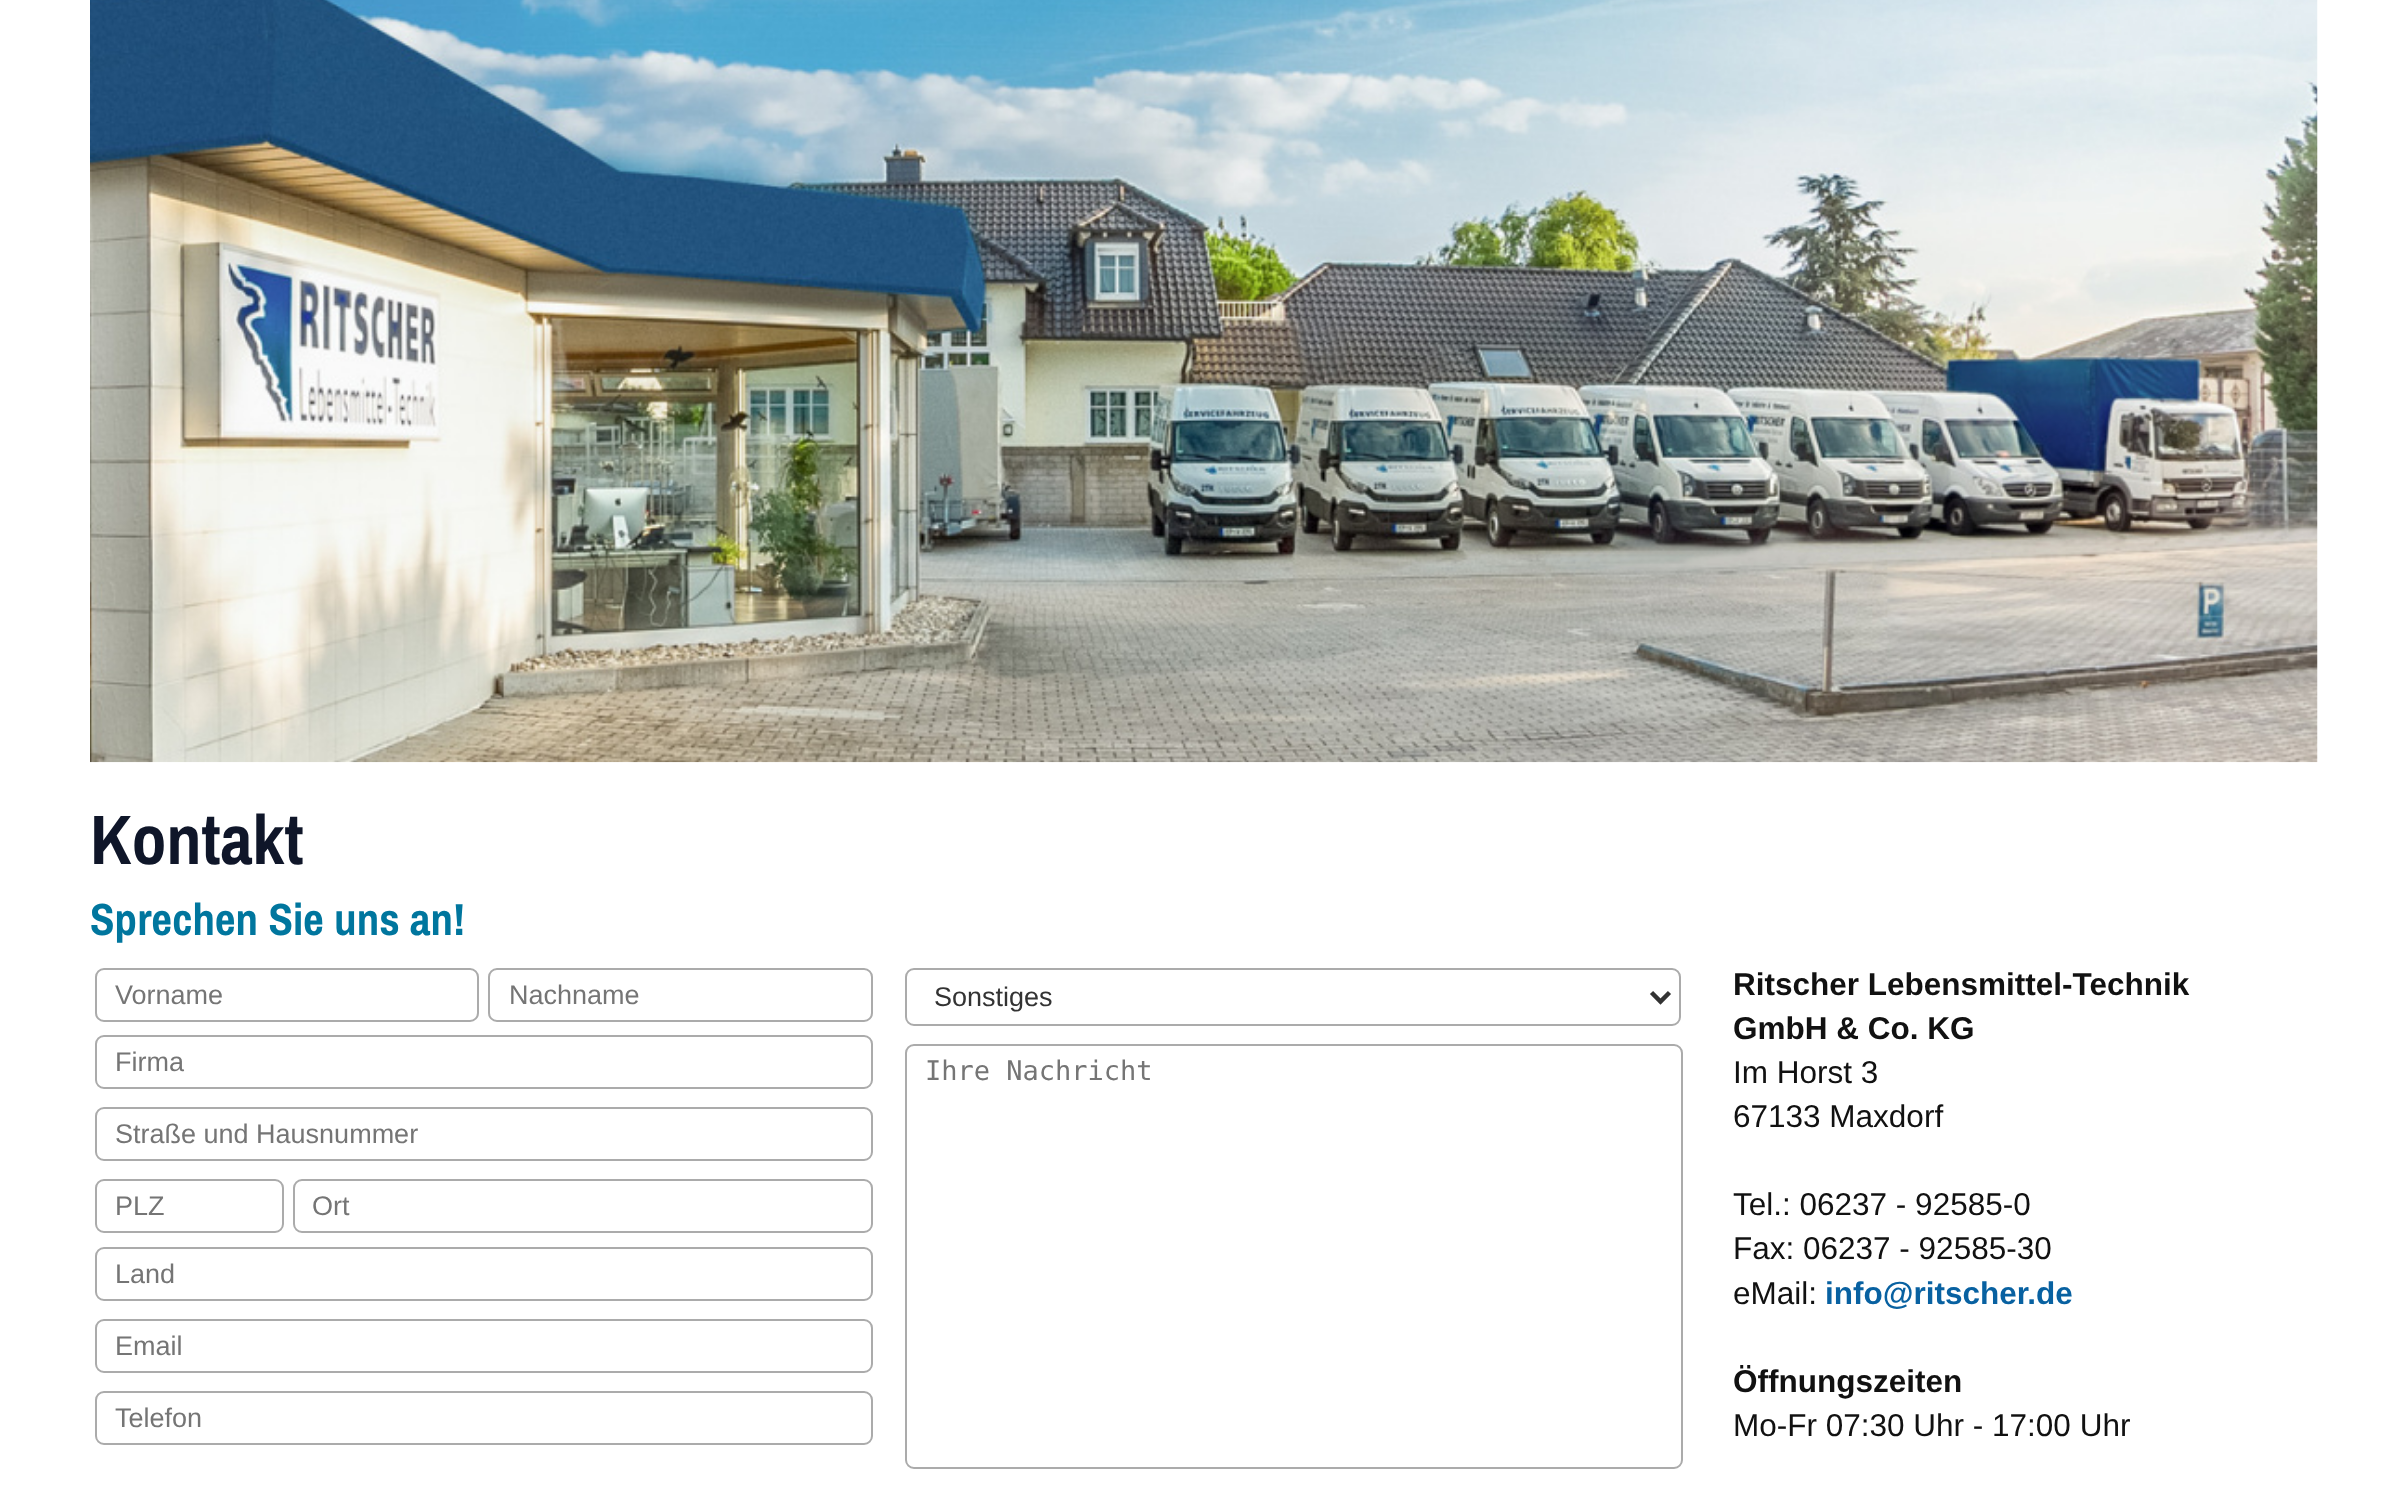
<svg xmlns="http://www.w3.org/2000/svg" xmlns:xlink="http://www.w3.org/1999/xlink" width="2407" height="1492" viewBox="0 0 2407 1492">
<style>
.cls-1{font:bold 70px Archivo Narrow;fill:#0f1629}
.cls-2{font:bold 45px Archivo Narrow;fill:#00769e}
.cls-3{font:27px Liberation Sans;fill:#757575}
.cls-4{font:27px Liberation Sans;fill:#333333}
.cls-5{font:27px DejaVu Sans Mono;fill:#757575}
.cls-6{font:bold 31.5px Liberation Sans;fill:#111111}
.cls-7{font:31.5px Liberation Sans;fill:#111111}
.cls-8{font:bold 31.5px Liberation Sans;fill:#0861a1}
</style>
<rect width="100%" height="100%" fill="#ffffff"/>
<image xlink:href="image0.png" x="90" y="0" width="2228" height="763"/>
<rect fill="none" stroke="#ababab" stroke-width="2" x="96" y="969" width="382" height="52" rx="8"/>
<rect fill="none" stroke="#ababab" stroke-width="2" x="489" y="969" width="383" height="52" rx="8"/>
<rect fill="none" stroke="#ababab" stroke-width="2" x="96" y="1036" width="776" height="52" rx="8"/>
<rect fill="none" stroke="#ababab" stroke-width="2" x="96" y="1108" width="776" height="52" rx="8"/>
<rect fill="none" stroke="#ababab" stroke-width="2" x="96" y="1180" width="187" height="52" rx="8"/>
<rect fill="none" stroke="#ababab" stroke-width="2" x="294" y="1180" width="578" height="52" rx="8"/>
<rect fill="none" stroke="#ababab" stroke-width="2" x="96" y="1248" width="776" height="52" rx="8"/>
<rect fill="none" stroke="#ababab" stroke-width="2" x="96" y="1320" width="776" height="52" rx="8"/>
<rect fill="none" stroke="#ababab" stroke-width="2" x="96" y="1392" width="776" height="52" rx="8"/>
<rect fill="none" stroke="#ababab" stroke-width="2" x="906" y="969" width="774" height="56" rx="8"/>
<path fill="none" stroke="#333333" stroke-width="4.5" d="M1651.5 992.5L1660.5 1001.5L1669.5 992.5"/>
<rect fill="none" stroke="#ababab" stroke-width="2" x="906" y="1045" width="776" height="423" rx="8"/>
<text class="cls-1" x="90" y="864">Kontakt</text>
<text class="cls-2" x="90" y="935">Sprechen Sie uns an!</text>
<text class="cls-3" x="115" y="1004">Vorname</text>
<text class="cls-3" x="509" y="1004">Nachname</text>
<text class="cls-3" x="115" y="1071">Firma</text>
<text class="cls-3" x="115" y="1143">Straße und Hausnummer</text>
<text class="cls-3" x="115" y="1215">PLZ</text>
<text class="cls-3" x="312" y="1215">Ort</text>
<text class="cls-3" x="115" y="1283">Land</text>
<text class="cls-3" x="115" y="1355">Email</text>
<text class="cls-3" x="115" y="1427">Telefon</text>
<text class="cls-4" x="934" y="1006">Sonstiges</text>
<text class="cls-5" x="925" y="1080">Ihre Nachricht</text>
<text class="cls-6"><tspan x="1733" y="995">Ritscher Lebensmittel-Technik</tspan><tspan x="1733" y="1039">GmbH &amp; Co. KG</tspan></text>
<text class="cls-7"><tspan x="1733" y="1083">Im Horst 3</tspan><tspan x="1733" y="1127">67133 Maxdorf</tspan></text>
<text class="cls-7"><tspan x="1733" y="1215">Tel.: 06237 - 92585-0</tspan><tspan x="1733" y="1259">Fax: 06237 - 92585-30</tspan><tspan x="1733" y="1304">eMail:</tspan></text>
<text class="cls-8" x="1825" y="1304">info@ritscher.de</text>
<text class="cls-6" x="1733" y="1392">Öffnungszeiten</text>
<text class="cls-7" x="1733" y="1436">Mo-Fr 07:30 Uhr - 17:00 Uhr</text>
</svg>
